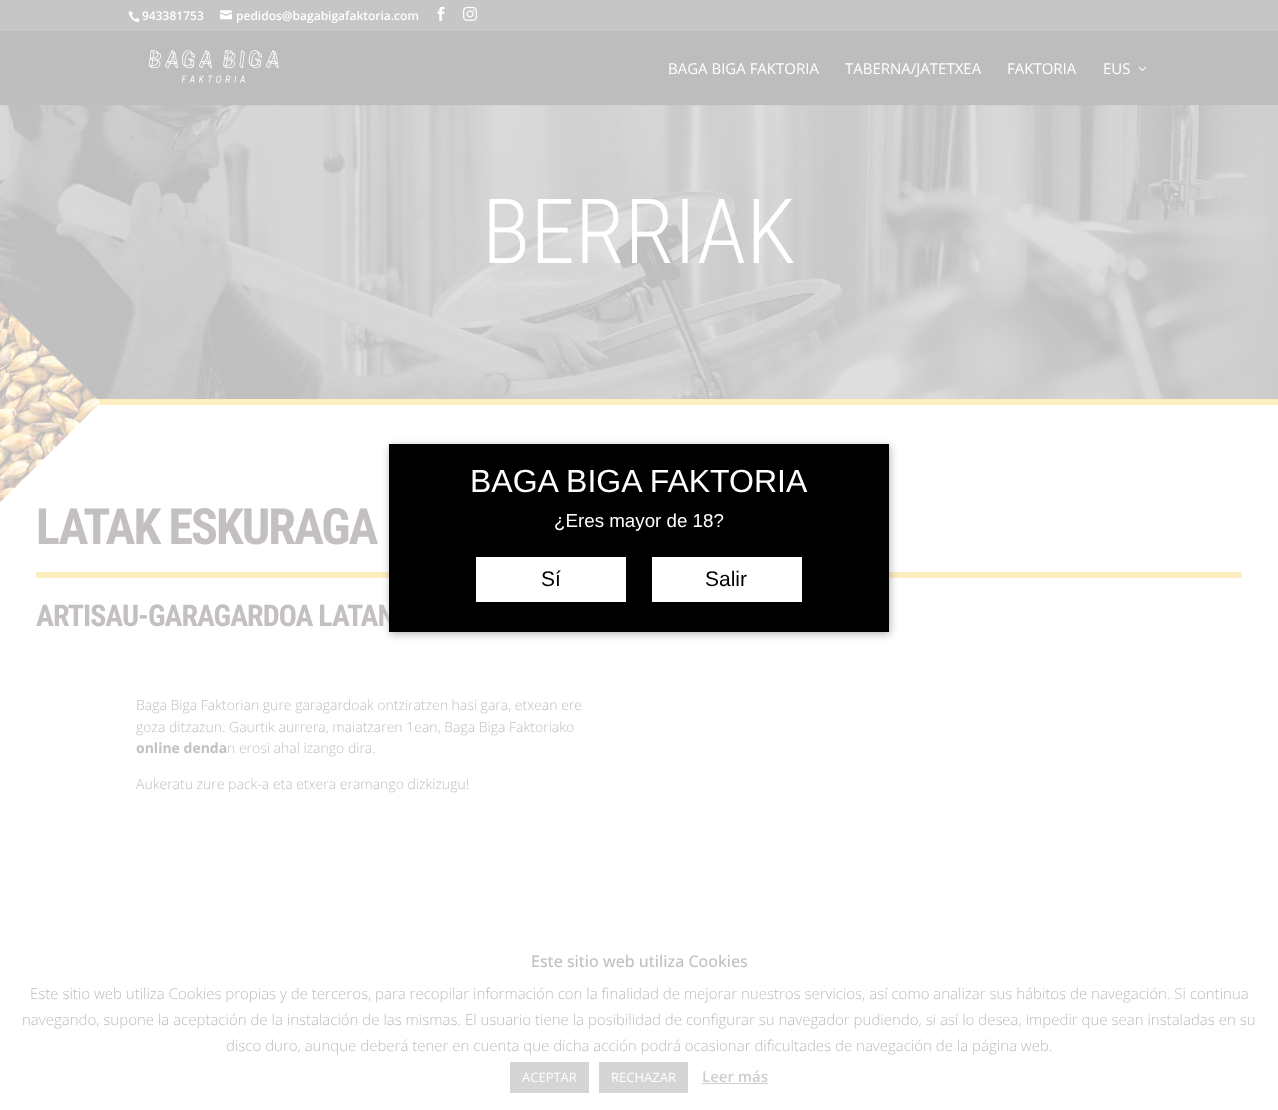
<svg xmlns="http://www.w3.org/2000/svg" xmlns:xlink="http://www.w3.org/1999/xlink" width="1278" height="1110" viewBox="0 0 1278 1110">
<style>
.cls-1{font:600 12px Open Sans;fill:#ffffff}
.cls-2{font:15px Open Sans;fill:#ffffff}
.cls-3{font:300 90px Roboto Condensed;fill:#ffffff}
.cls-4{font:bold 50px Roboto Condensed;letter-spacing:-2px;fill:#c3c0bf}
.cls-5{font:bold 30px Roboto Condensed;letter-spacing:-1px;fill:#c3c0bf}
.cls-6{font:300 14px Open Sans;fill:#c3c0bf}
.cls-7{font:bold 14px Open Sans;fill:#c3c0bf}
.cls-8{font:32px Liberation Sans;fill:#ffffff}
.cls-9{font:18.75px Liberation Sans;fill:#ffffff}
.cls-10{font:21px Liberation Sans;fill:#000000}
.cls-11{font:500 16px Open Sans;fill:#c3c0bf}
.cls-12{font:300 15px Open Sans;fill:#bdbdbd}
.cls-13{font:13px Open Sans;fill:#ffffff}
.cls-14{font:600 15px Open Sans;fill:#cecece}
</style>
<rect width="100%" height="100%" fill="#bdbdbd"/>
<rect fill="#c6c6c6" x="0" y="0" width="1278" height="31"/>
<image xlink:href="image0.png" x="128" y="11" width="12" height="12"/>
<image xlink:href="image1.png" x="220" y="10" width="12" height="10"/>
<image xlink:href="image2.png" x="437" y="6" width="8" height="15"/>
<image xlink:href="image3.png" x="463" y="6" width="14" height="15"/>
<image xlink:href="image6.png" x="0" y="105" width="1278" height="294"/>
<rect fill="#bdbdbd" fill-opacity="0.1" x="0" y="105" width="1194" height="1"/>
<image xlink:href="image4.png" x="148" y="50" width="131" height="33"/>
<image xlink:href="image5.png" x="1138" y="66" width="9" height="5"/>
<rect fill="#ffffff" x="0" y="405" width="1278" height="705"/>
<rect fill="#fceebf" x="97" y="399" width="1181" height="6"/>
<image xlink:href="image7.png" x="0" y="302" width="100" height="200"/>
<rect fill="#fceebf" x="36" y="572" width="1206" height="6"/>
<rect fill="#000000" fill-opacity="0.3" filter="blur(4.5px)" x="390" y="446" width="500" height="188"/>
<rect fill="#d5d5d5" x="510" y="1062" width="79" height="31"/>
<rect fill="#d5d5d5" x="599" y="1062" width="89" height="31"/>
<rect fill="#cecece" x="702" y="1083" width="66" height="1"/>
<text class="cls-1" x="142" y="20">943381753</text>
<text class="cls-1" x="236" y="20">pedidos@bagabigafaktoria.com</text>
<text class="cls-2" x="668" y="74">BAGA BIGA FAKTORIA</text>
<text class="cls-2" x="845" y="74">TABERNA/JATETXEA</text>
<text class="cls-2" x="1007" y="74">FAKTORIA</text>
<text class="cls-2" x="1103" y="74">EUS</text>
<text class="cls-3" x="482" y="263">BERRIAK</text>
<text class="cls-4" x="36" y="544">LATAK ESKURAGA</text>
<text class="cls-5" x="36" y="626">ARTISAU-GARAGARDOA LATAN</text>
<text class="cls-6"><tspan x="136" y="710">Baga Biga Faktorian gure garagardoak ontziratzen hasi gara, etxean ere</tspan><tspan x="136" y="732">goza ditzazun. Gaurtik aurrera, maiatzaren 1ean, Baga Biga Faktoriako</tspan></text>
<text class="cls-7" x="136" y="753">online denda</text>
<text class="cls-6" x="227" y="753">n erosi ahal izango dira.</text>
<text class="cls-6" x="136" y="789">Aukeratu zure pack-a eta etxera eramango dizkizugu!</text>
<rect fill="#000000" x="389" y="444" width="500" height="188"/>
<text class="cls-8" x="470" y="492">BAGA BIGA FAKTORIA</text>
<text class="cls-9" x="554" y="527">¿Eres mayor de 18?</text>
<rect fill="#ffffff" x="476" y="557" width="150" height="45"/>
<text class="cls-10" x="541" y="586">Sí</text>
<rect fill="#ffffff" x="652" y="557" width="150" height="45"/>
<text class="cls-10" x="705" y="586">Salir</text>
<text class="cls-11" x="531" y="967">Este sitio web utiliza Cookies</text>
<text class="cls-12" x="30" y="999">Este sitio web utiliza Cookies propias y de terceros, para recopilar información con la finalidad de mejorar nuestros servicios, así como analizar sus hábitos de navegación. Si continua</text>
<text class="cls-12" x="22" y="1025">navegando, supone la aceptación de la instalación de las mismas. El usuario tiene la posibilidad de configurar su navegador pudiendo, si así lo desea, impedir que sean instaladas en su</text>
<text class="cls-12" x="226" y="1051">disco duro, aunque deberá tener en cuenta que dicha acción podrá ocasionar dificultades de navegación de la página web.</text>
<text class="cls-13" x="522" y="1082">ACEPTAR</text>
<text class="cls-13" x="611" y="1082">RECHAZAR</text>
<text class="cls-14" x="702" y="1082">Leer más</text>
</svg>
